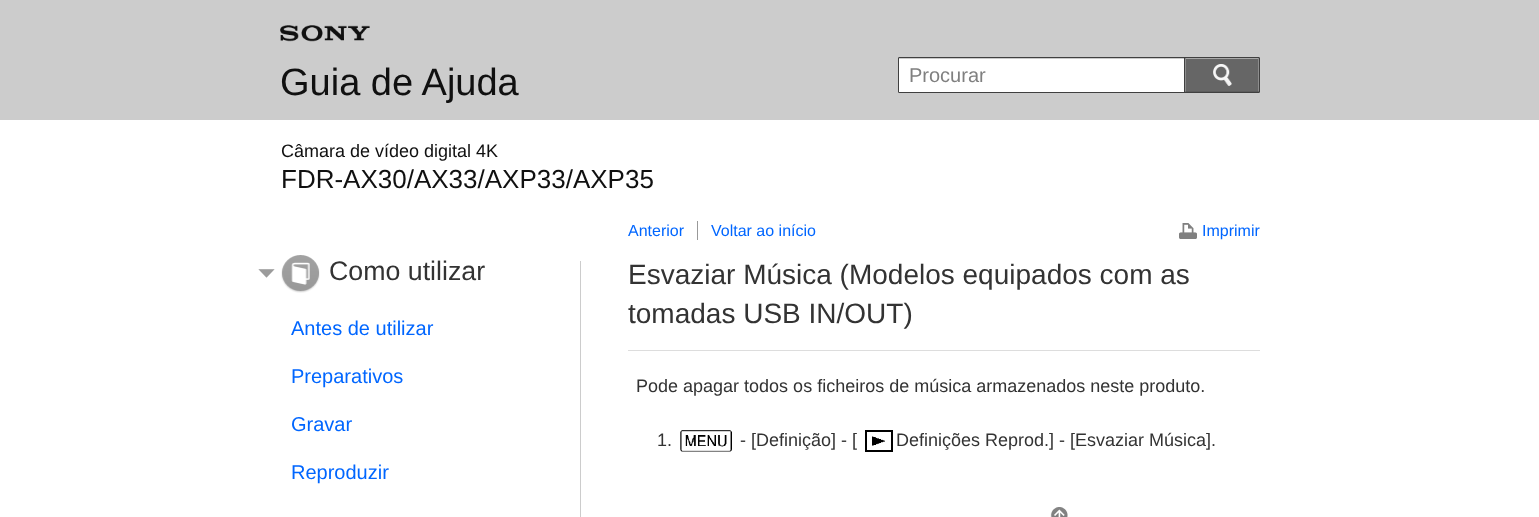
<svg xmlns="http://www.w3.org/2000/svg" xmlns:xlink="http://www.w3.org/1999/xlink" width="1539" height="517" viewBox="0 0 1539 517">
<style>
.cls-1{font:38px Liberation Sans;fill:#101010}
.cls-2{font:20px Liberation Sans;fill:#808080}
.cls-3{font:18px Liberation Sans;fill:#101010}
.cls-4{font:26px Liberation Sans;fill:#101010}
.cls-5{font:26.75px Liberation Sans;fill:#333333}
.cls-6{font:20px Liberation Sans;fill:#0066ff}
.cls-7{font:16px Liberation Sans;fill:#0066ff}
.cls-8{font:28px Liberation Sans;fill:#333333}
.cls-9{font:18px Liberation Sans;fill:#333333}
</style>
<rect width="100%" height="100%" fill="#ffffff"/>
<rect fill="#cccccc" x="0" y="0" width="1539" height="120"/>
<image xlink:href="image0.png" x="280" y="25" width="90" height="17"/>
<rect fill="#666666" stroke="#404040" x="898.5" y="57.5" width="361" height="35" rx="0.5"/>
<rect fill="#404040" x="1184" y="58" width="1" height="34"/>
<rect fill="#ffffff" x="899" y="59" width="285" height="33"/>
<rect fill="#cacaca" x="899" y="58" width="285" height="1"/>
<path fill="#a8a8a8" d="M1185 58L1186 59H1258L1259 58H1258Z"/>
<path fill="#8d8d8d" d="M1259 91V58L1258 59V91L1259 92Z"/>
<path fill="#5c5c5c" d="M1258 92H1259L1258 91H1186L1185 92Z"/>
<path fill="#8d8d8d" d="M1185 58V92L1186 91V59Z"/>
<image xlink:href="image1.png" x="1213" y="64" width="19" height="22"/>
<rect fill="#cccccc" x="580" y="261" width="1" height="256"/>
<image xlink:href="image2.png" x="258" y="269" width="17" height="9"/>
<image xlink:href="image3.png" x="281" y="255" width="39" height="38"/>
<rect fill="#999999" x="697" y="221" width="1" height="19"/>
<image xlink:href="image4.png" x="1179" y="223" width="18" height="16"/>
<rect fill="#dddddd" x="628" y="350" width="632" height="1"/>
<image xlink:href="image5.png" x="680" y="430" width="52" height="22"/>
<image xlink:href="image6.png" x="865" y="430" width="28" height="22"/>
<image xlink:href="image7.png" x="1050" y="507" width="18" height="10"/>
<text class="cls-1" x="280" y="95">Guia de Ajuda</text>
<text class="cls-2" x="909" y="82">Procurar</text>
<text class="cls-3" x="281" y="157">Câmara de vídeo digital 4K</text>
<text class="cls-4" x="281" y="188">FDR-AX30/AX33/AXP33/AXP35</text>
<text class="cls-5" x="329" y="280">Como utilizar</text>
<text class="cls-6" x="291" y="335">Antes de utilizar</text>
<text class="cls-6" x="291" y="383">Preparativos</text>
<text class="cls-6" x="291" y="431">Gravar</text>
<text class="cls-6" x="291" y="479">Reproduzir</text>
<text class="cls-7" x="628" y="236">Anterior</text>
<text class="cls-7" x="711" y="236">Voltar ao início</text>
<text class="cls-7" x="1202" y="236">Imprimir</text>
<text class="cls-8"><tspan x="628" y="284">Esvaziar Música (Modelos equipados com as</tspan><tspan x="628" y="323">tomadas USB IN/OUT)</tspan></text>
<text class="cls-9" x="636" y="392">Pode apagar todos os ficheiros de música armazenados neste produto.</text>
<text class="cls-9" x="657" y="446">1.</text>
<text class="cls-9" x="740" y="446">- [Definição] - [</text>
<text class="cls-9" x="896" y="446">Definições Reprod.] - [Esvaziar Música].</text>
</svg>
